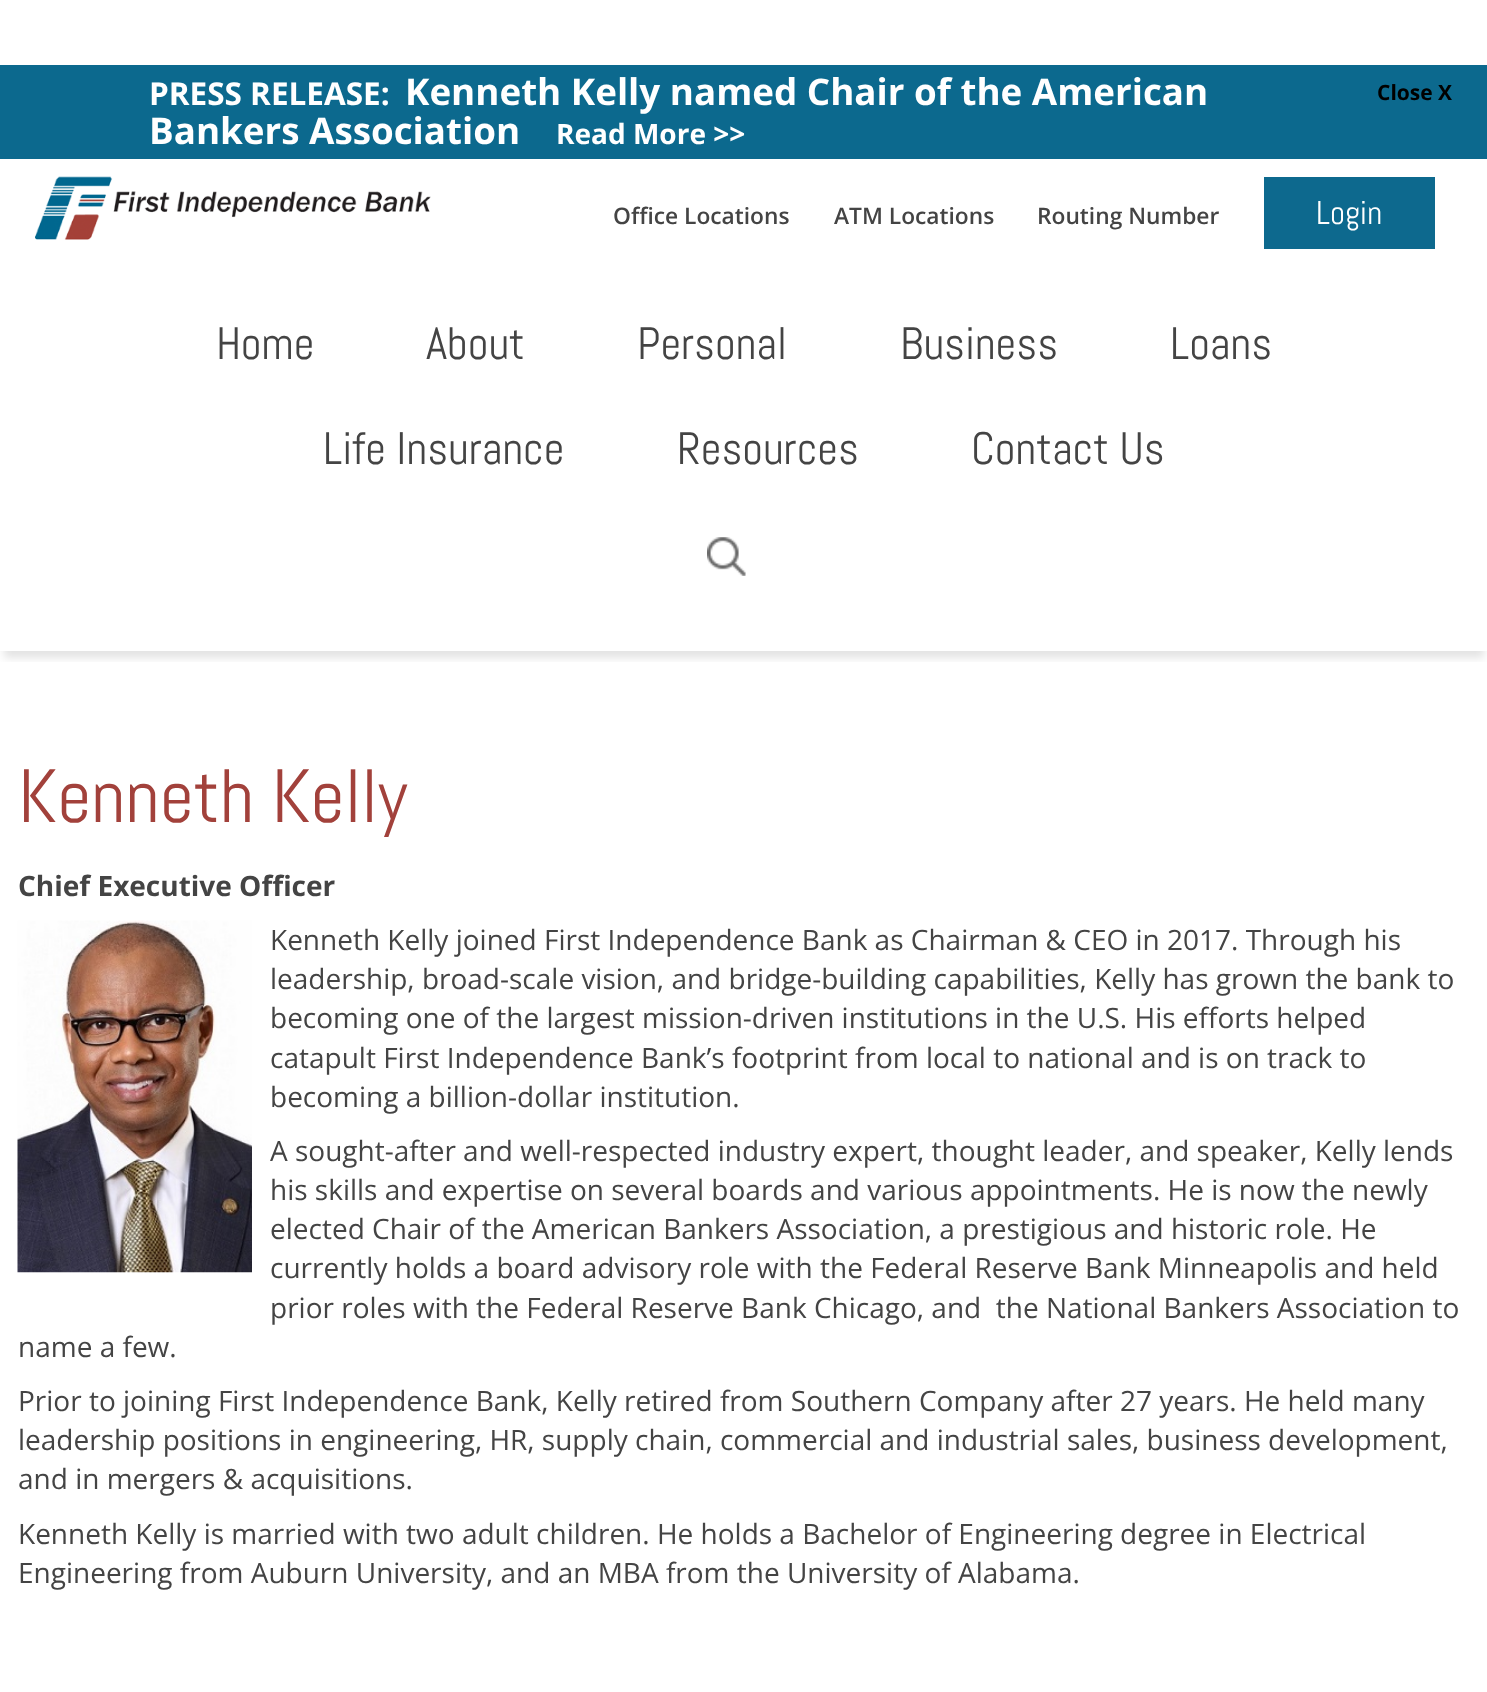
<svg xmlns="http://www.w3.org/2000/svg" xmlns:xlink="http://www.w3.org/1999/xlink" width="1487" height="1692" viewBox="0 0 1487 1692">
<style>
.cls-1{font:bold 31.5px Open Sans;fill:#ffffff}
.cls-2{font:bold 36.75px Open Sans;fill:#ffffff}
.cls-3{font:bold 28px Open Sans;fill:#ffffff}
.cls-4{font:bold 21px Open Sans;fill:#000000}
.cls-5{font:600 22.75px Open Sans;fill:#444444}
.cls-6{font:33px Abel;fill:#ffffff}
.cls-7{font:45.5px Abel;fill:#444444}
.cls-8{font:75.25px Abel;fill:#a2413b}
.cls-9{font:bold 28px Open Sans;fill:#444444}
.cls-10{font:28px Open Sans;fill:#444444}
</style>
<defs>
<clipPath id="clip1"><rect x="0" y="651" width="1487" height="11"/></clipPath>
</defs>
<rect width="100%" height="100%" fill="#ffffff"/>
<g clip-path="url(#clip1)">
<rect fill="#000000" fill-opacity="0.11" filter="blur(4.5px)" x="4" y="173" width="1480" height="485"/>
</g>
<rect fill="#0c698e" x="0" y="65" width="1487" height="94"/>
<image xlink:href="image0.png" x="35" y="176" width="396" height="64"/>
<rect fill="#0d698e" x="1264" y="177" width="171" height="72"/>
<image xlink:href="image1.png" x="707" y="537" width="39" height="39"/>
<image xlink:href="image2.png" x="17" y="920" width="235" height="353"/>
<text class="cls-1" x="149" y="105">PRESS RELEASE:</text>
<text class="cls-2" x="405" y="105">Kenneth Kelly named Chair of the American</text>
<text class="cls-2" x="149" y="144">Bankers Association</text>
<text class="cls-3" x="556" y="144">Read More &gt;&gt;</text>
<text class="cls-4" x="1377" y="100">Close X</text>
<text class="cls-5" x="613" y="224">Office Locations</text>
<text class="cls-5" x="834" y="224">ATM Locations</text>
<text class="cls-5" x="1037" y="224">Routing Number</text>
<text class="cls-6" x="1316" y="224">Login</text>
<text class="cls-7" x="216" y="359">Home</text>
<text class="cls-7" x="426" y="359">About</text>
<text class="cls-7" x="637" y="359">Personal</text>
<text class="cls-7" x="900" y="359">Business</text>
<text class="cls-7" x="1170" y="359">Loans</text>
<text class="cls-7" x="323" y="464">Life Insurance</text>
<text class="cls-7" x="677" y="464">Resources</text>
<text class="cls-7" x="971" y="464">Contact Us</text>
<text class="cls-8" x="18" y="822">Kenneth Kelly</text>
<text class="cls-9" x="18" y="896">Chief Executive Officer</text>
<text class="cls-10" xml:space="preserve"><tspan x="270" y="950">Kenneth Kelly joined First Independence Bank as Chairman &amp; CEO in 2017. Through his</tspan><tspan x="270" y="989">leadership, broad-scale vision, and bridge-building capabilities, Kelly has grown the bank to</tspan><tspan x="270" y="1028">becoming one of the largest mission-driven institutions in the U.S. His efforts helped</tspan><tspan x="270" y="1068">catapult First Independence Bank’s footprint from local to national and is on track to</tspan><tspan x="270" y="1107">becoming a billion-dollar institution.</tspan><tspan x="270" y="1161">A sought-after and well-respected industry expert, thought leader, and speaker, Kelly lends</tspan><tspan x="270" y="1200">his skills and expertise on several boards and various appointments. He is now the newly</tspan><tspan x="270" y="1239">elected Chair of the American Bankers Association, a prestigious and historic role. He</tspan><tspan x="270" y="1278">currently holds a board advisory role with the Federal Reserve Bank Minneapolis and held</tspan><tspan x="270" y="1318">prior roles with the Federal Reserve Bank Chicago, and  the National Bankers Association to</tspan></text>
<text class="cls-10"><tspan x="18" y="1357">name a few.</tspan><tspan x="18" y="1411">Prior to joining First Independence Bank, Kelly retired from Southern Company after 27 years. He held many</tspan><tspan x="18" y="1450">leadership positions in engineering, HR, supply chain, commercial and industrial sales, business development,</tspan><tspan x="18" y="1489">and in mergers &amp; acquisitions.</tspan><tspan x="18" y="1544">Kenneth Kelly is married with two adult children. He holds a Bachelor of Engineering degree in Electrical</tspan><tspan x="18" y="1583">Engineering from Auburn University, and an MBA from the University of Alabama.</tspan></text>
</svg>
